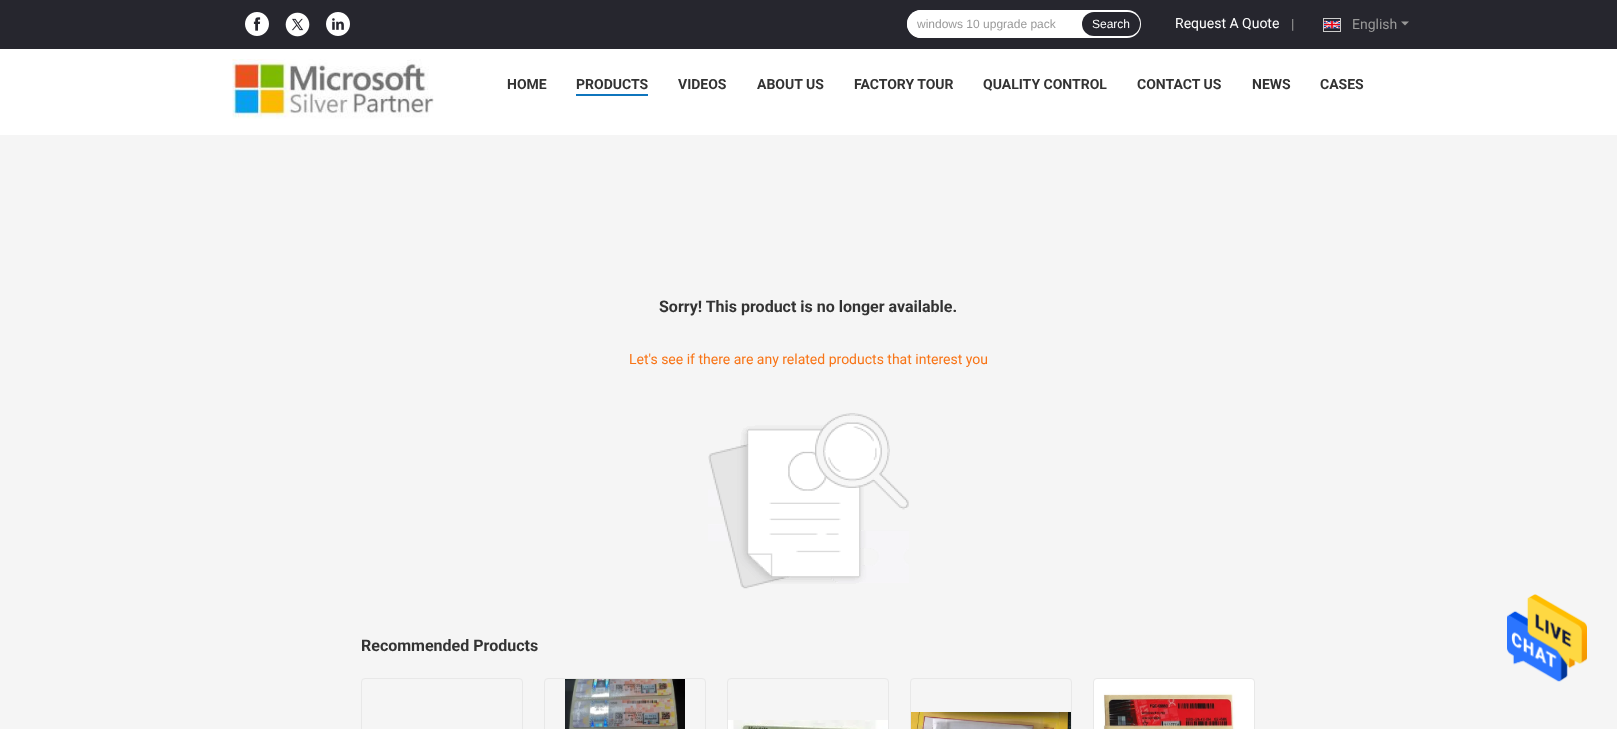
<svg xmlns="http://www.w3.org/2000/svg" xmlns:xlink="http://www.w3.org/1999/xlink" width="1617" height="729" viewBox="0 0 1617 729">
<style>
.cls-1{font:12px Liberation Sans;fill:#999999}
.cls-2{font:12px Liberation Sans;fill:#ffffff}
.cls-3{font:14px Roboto;fill:#ffffff}
.cls-4{font:14px Roboto;fill:#999999}
.cls-5{font:bold 14px Roboto;fill:#333333}
.cls-6{font:bold 16px Roboto;fill:#333333}
.cls-7{font:14px Roboto;fill:#f87416}
</style>
<rect width="100%" height="100%" fill="#f5f5f5"/>
<rect fill="#ffffff" x="0" y="49" width="1617" height="86"/>
<rect fill="#26262e" x="0" y="0" width="1617" height="49"/>
<image xlink:href="image0.png" x="245" y="12" width="24" height="24"/>
<image xlink:href="image1.png" x="285" y="12" width="25" height="25"/>
<image xlink:href="image2.png" x="326" y="12" width="24" height="24"/>
<rect fill="#ffffff" x="907" y="10" width="234" height="28" rx="14"/>
<path fill="#ffffff" d="M921 10H1082V38H921C913.5 38 907 31.5 907 24C907 16.5 913.5 10 921 10Z"/>
<rect fill="#26262e" x="1082" y="12" width="58" height="24" rx="12"/>
<rect fill="none" stroke="#cccccc" x="1323.5" y="18.5" width="17" height="13"/>
<image xlink:href="image3.png" x="1324" y="20" width="16" height="9"/>
<path fill="#999999" d="M1401 21.5H1409L1405 25.5Z"/>
<image xlink:href="image4.png" x="232" y="59" width="202" height="60"/>
<rect fill="#0f75bd" x="576" y="94" width="72" height="2"/>
<image xlink:href="image5.png" x="708" y="413" width="201" height="176"/>
<rect fill="none" stroke="#e8e8e8" x="361.5" y="678.5" width="161" height="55" rx="3.5"/>
<rect fill="none" stroke="#e8e8e8" x="544.5" y="678.5" width="161" height="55" rx="3.5"/>
<image xlink:href="image6.png" x="565" y="679" width="120" height="50"/>
<rect fill="none" stroke="#e8e8e8" x="727.5" y="678.5" width="161" height="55" rx="3.5"/>
<image xlink:href="image7.png" x="728" y="720" width="160" height="9"/>
<rect fill="none" stroke="#e8e8e8" x="910.5" y="678.5" width="161" height="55" rx="3.5"/>
<image xlink:href="image8.png" x="911" y="712" width="160" height="17"/>
<rect fill="none" stroke="#e8e8e8" x="1093.5" y="678.5" width="161" height="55" rx="3.5"/>
<image xlink:href="image9.png" x="1094" y="679" width="160" height="50"/>
<image xlink:href="image10.png" x="1507" y="594" width="80" height="88"/>
<text class="cls-1" x="917" y="28">windows 10 upgrade pack</text>
<text class="cls-2" x="1092" y="28">Search</text>
<text class="cls-3" x="1175" y="28">Request A Quote</text>
<text class="cls-4" x="1291" y="29">|</text>
<text class="cls-4" x="1352" y="29">English</text>
<text class="cls-5" x="507" y="89">HOME</text>
<text class="cls-5" x="576" y="89">PRODUCTS</text>
<text class="cls-5" x="678" y="89">VIDEOS</text>
<text class="cls-5" x="757" y="89">ABOUT US</text>
<text class="cls-5" x="854" y="89">FACTORY TOUR</text>
<text class="cls-5" x="983" y="89">QUALITY CONTROL</text>
<text class="cls-5" x="1137" y="89">CONTACT US</text>
<text class="cls-5" x="1252" y="89">NEWS</text>
<text class="cls-5" x="1320" y="89">CASES</text>
<text class="cls-6" x="659" y="312">Sorry! This product is no longer available.</text>
<text class="cls-7" x="629" y="364">Let's see if there are any related products that interest you</text>
<text class="cls-6" x="361" y="651">Recommended Products</text>
</svg>
